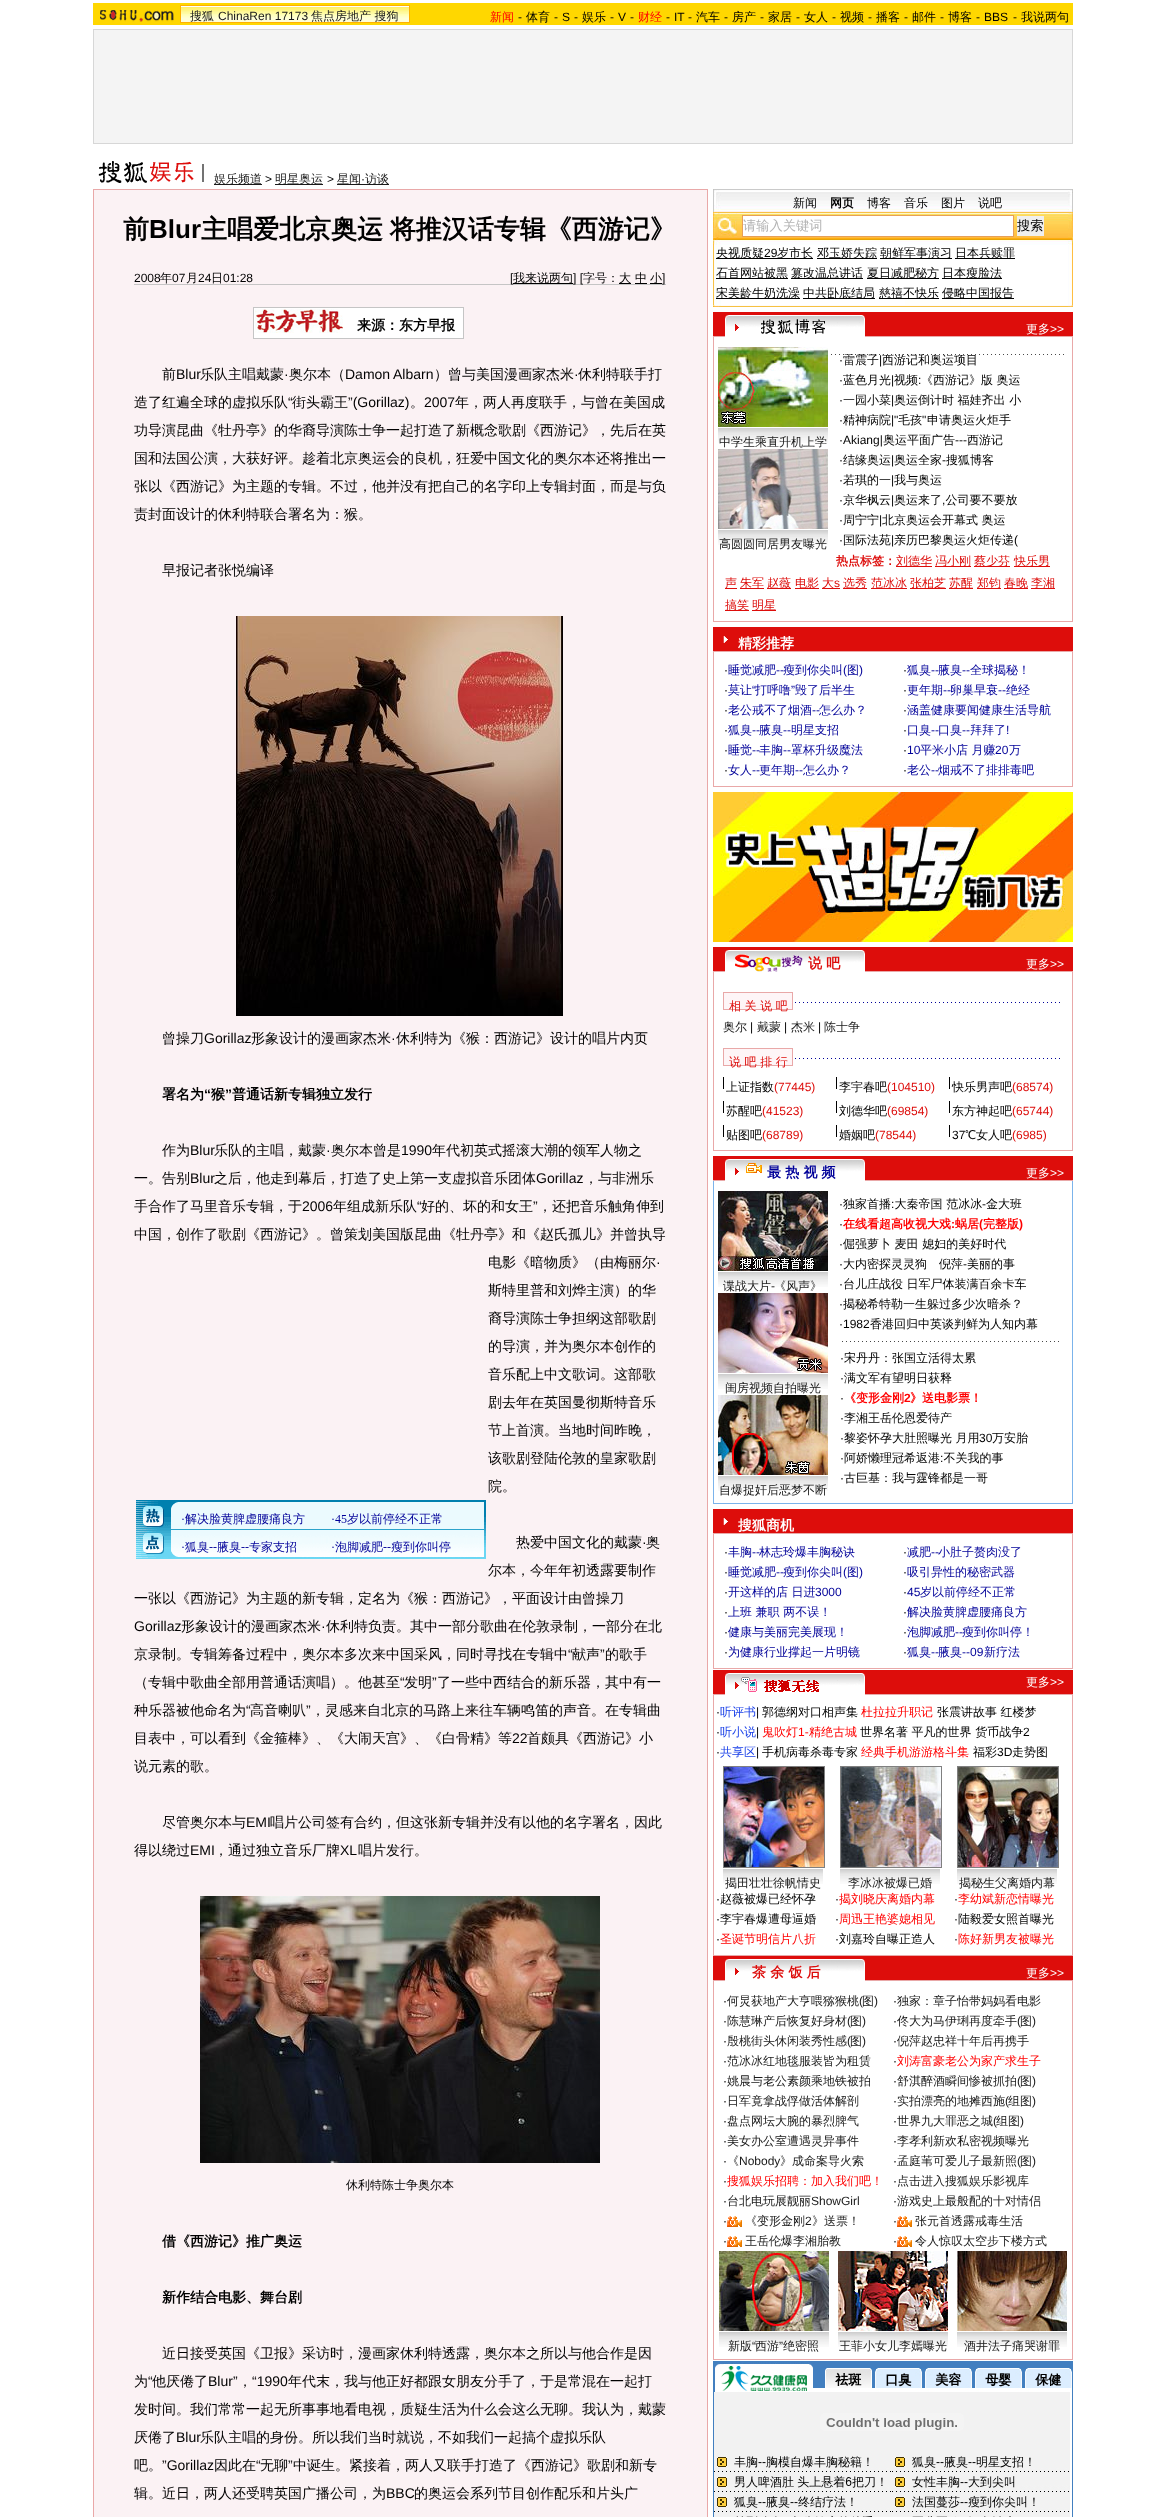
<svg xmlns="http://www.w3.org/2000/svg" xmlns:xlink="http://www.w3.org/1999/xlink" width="1165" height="2517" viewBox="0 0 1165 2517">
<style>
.cls-1{font:500 12px WenQuanYi Zen Hei;fill:#191919}
.cls-2{font:12px Liberation Sans;fill:#191919}
.cls-3{font:500 12px WenQuanYi Zen Hei;fill:#ff0000}
.cls-4{font:12px Liberation Sans;fill:#000000}
.cls-5{font:500 12px WenQuanYi Zen Hei;fill:#000000}
.cls-6{font:bold 26px WenQuanYi Zen Hei;fill:#000000}
.cls-7{font:bold 26px Liberation Sans;fill:#000000}
.cls-8{font:bold 14px WenQuanYi Zen Hei;fill:#000000}
.cls-9{font:500 14px WenQuanYi Zen Hei;fill:#000000}
.cls-10{font:14px Liberation Sans;fill:#000000}
.cls-11{font:bold 14px Liberation Sans;fill:#000000}
.cls-12{font:bold 12px WenQuanYi Zen Hei;fill:#000000}
.cls-13{font:500 13.25px WenQuanYi Zen Hei;fill:#b3b3b3}
.cls-14{font:500 13.25px WenQuanYi Zen Hei;fill:#000000}
.cls-15{font:500 12px WenQuanYi Zen Hei;fill:#ffffff}
.cls-16{font:12px Liberation Sans;fill:#ffffff}
.cls-17{font:bold 12px WenQuanYi Zen Hei;fill:#dd0d0b}
.cls-18{font:500 12px WenQuanYi Zen Hei;fill:#dd0d0b}
.cls-19{font:12px Liberation Sans;fill:#dd0d0b}
.cls-20{font:bold 14px WenQuanYi Zen Hei;fill:#ffffff}
.cls-21{font:500 12px WenQuanYi Zen Hei;fill:#000099}
.cls-22{font:12px Liberation Sans;fill:#000099}
.cls-23{font:bold 14px WenQuanYi Zen Hei;fill:#dd0d0b}
.cls-24{font:bold 14px WenQuanYi Zen Hei;fill:#000099}
.cls-25{font:bold 12px WenQuanYi Zen Hei;fill:#ff0000}
.cls-26{font:bold 12px Liberation Sans;fill:#ff0000}
.cls-27{font:500 12px WenQuanYi Zen Hei;fill:#173ee8}
.cls-28{font:12px Liberation Sans;fill:#ff0000}
</style>
<rect width="100%" height="100%" fill="#ffffff"/>
<rect fill="#ffd700" x="93" y="3" width="980" height="22"/>
<image xlink:href="image0.png" x="100" y="10" width="74" height="12"/>
<image xlink:href="image1.png" x="180" y="5" width="230" height="18"/>
<rect fill="#f4f4f4" stroke="#d7d7d7" x="93.5" y="29.5" width="979" height="114"/>
<image xlink:href="image2.png" x="98" y="161" width="106" height="22"/>
<rect fill="#191919" x="214" y="184" width="48" height="1"/>
<rect fill="#191919" x="275" y="184" width="48" height="1"/>
<rect fill="#191919" x="337" y="184" width="52" height="1"/>
<rect fill="#fbf2f4" stroke="#e9a8a8" x="93.5" y="189.5" width="614" height="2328"/>
<rect fill="#c5c5c5" x="134" y="284" width="532" height="1"/>
<rect fill="#000000" x="513" y="283" width="60" height="1"/>
<rect fill="#000000" x="619" y="283" width="12" height="1"/>
<rect fill="#000000" x="635" y="283" width="12" height="1"/>
<rect fill="#000000" x="650" y="283" width="12" height="1"/>
<rect fill="#ffffff" stroke="#c5c5c5" x="253.5" y="307.5" width="210" height="31"/>
<image xlink:href="image3.png" x="255" y="309" width="88" height="24"/>
<image xlink:href="image4.png" x="236" y="616" width="327" height="400"/>
<image xlink:href="image5.png" x="136" y="1500" width="350" height="59"/>
<image xlink:href="image6.png" x="200" y="1896" width="400" height="267"/>
<image xlink:href="image7.png" x="713" y="189" width="360" height="118"/>
<rect fill="#ffffff" stroke="#e89f57" x="742.5" y="215.5" width="271" height="21"/>
<rect fill="#efefef" x="1017" y="216" width="27" height="20"/>
<rect fill="#000000" x="716" y="258" width="97" height="1"/>
<rect fill="#000000" x="817" y="258" width="60" height="1"/>
<rect fill="#000000" x="880" y="258" width="72" height="1"/>
<rect fill="#000000" x="955" y="258" width="60" height="1"/>
<rect fill="#000000" x="716" y="278" width="72" height="1"/>
<rect fill="#000000" x="791" y="278" width="72" height="1"/>
<rect fill="#000000" x="867" y="278" width="72" height="1"/>
<rect fill="#000000" x="942" y="278" width="60" height="1"/>
<rect fill="#000000" x="716" y="298" width="84" height="1"/>
<rect fill="#000000" x="803" y="298" width="72" height="1"/>
<rect fill="#000000" x="879" y="298" width="60" height="1"/>
<rect fill="#000000" x="942" y="298" width="72" height="1"/>
<image xlink:href="image8.png" x="713" y="312" width="360" height="25"/>
<image xlink:href="image9.png" x="761" y="319" width="64" height="15"/>
<rect fill="#e9a8a8" x="1072" y="337" width="1" height="285"/>
<rect fill="#e9a8a8" x="713" y="621" width="360" height="1"/>
<rect fill="#e9a8a8" x="713" y="337" width="1" height="285"/>
<image xlink:href="image10.png" x="718" y="347" width="110" height="80"/>
<image xlink:href="image11.png" x="718" y="428" width="110" height="15"/>
<image xlink:href="image12.png" x="718" y="449" width="110" height="80"/>
<image xlink:href="image11.png" x="718" y="530" width="110" height="15"/>
<image xlink:href="image13.png" x="831" y="354" width="233" height="1"/>
<rect fill="#dd0d0b" x="896" y="566" width="36" height="1"/>
<rect fill="#dd0d0b" x="935" y="566" width="36" height="1"/>
<rect fill="#dd0d0b" x="974" y="566" width="36" height="1"/>
<rect fill="#dd0d0b" x="1014" y="566" width="36" height="1"/>
<rect fill="#dd0d0b" x="725" y="588" width="12" height="1"/>
<rect fill="#dd0d0b" x="740" y="588" width="24" height="1"/>
<rect fill="#dd0d0b" x="767" y="588" width="24" height="1"/>
<rect fill="#dd0d0b" x="795" y="588" width="24" height="1"/>
<rect fill="#dd0d0b" x="822" y="588" width="18" height="1"/>
<rect fill="#dd0d0b" x="843" y="588" width="24" height="1"/>
<rect fill="#dd0d0b" x="871" y="588" width="36" height="1"/>
<rect fill="#dd0d0b" x="910" y="588" width="36" height="1"/>
<rect fill="#dd0d0b" x="949" y="588" width="24" height="1"/>
<rect fill="#dd0d0b" x="977" y="588" width="24" height="1"/>
<rect fill="#dd0d0b" x="1004" y="588" width="24" height="1"/>
<rect fill="#dd0d0b" x="1031" y="588" width="24" height="1"/>
<rect fill="#dd0d0b" x="725" y="610" width="24" height="1"/>
<rect fill="#dd0d0b" x="752" y="610" width="24" height="1"/>
<rect fill="#dd0d0b" x="713" y="627" width="360" height="24"/>
<image xlink:href="image14.png" x="723" y="636" width="5" height="7"/>
<rect fill="none" stroke="#e9a8a8" x="713.5" y="651.5" width="359" height="135"/>
<image xlink:href="image15.png" x="713" y="792" width="360" height="150"/>
<image xlink:href="image8.png" x="713" y="947" width="360" height="25"/>
<image xlink:href="image16.png" x="735" y="954" width="68" height="18"/>
<rect fill="#e9a8a8" x="1072" y="972" width="1" height="179"/>
<rect fill="#e9a8a8" x="713" y="1150" width="360" height="1"/>
<rect fill="#e9a8a8" x="713" y="972" width="1" height="179"/>
<image xlink:href="image17.png" x="793" y="1002" width="267" height="1"/>
<rect fill="#fef5f7" stroke="#e9a8a8" x="723.5" y="992.5" width="69" height="17"/>
<image xlink:href="image17.png" x="793" y="1058" width="267" height="1"/>
<rect fill="#fef5f7" stroke="#e9a8a8" x="723.5" y="1048.5" width="69" height="17"/>
<rect fill="#000000" x="723" y="1077" width="1" height="12"/>
<rect fill="#000000" x="836" y="1077" width="1" height="12"/>
<rect fill="#000000" x="949" y="1077" width="1" height="12"/>
<rect fill="#000000" x="723" y="1101" width="1" height="12"/>
<rect fill="#000000" x="836" y="1101" width="1" height="12"/>
<rect fill="#000000" x="949" y="1101" width="1" height="12"/>
<rect fill="#000000" x="723" y="1125" width="1" height="12"/>
<rect fill="#000000" x="836" y="1125" width="1" height="12"/>
<rect fill="#000000" x="949" y="1125" width="1" height="12"/>
<image xlink:href="image8.png" x="713" y="1156" width="360" height="25"/>
<image xlink:href="image18.png" x="746" y="1163" width="16" height="10"/>
<rect fill="#7bb3eb" x="1072" y="1181" width="1" height="323"/>
<rect fill="#7bb3eb" x="713" y="1503" width="360" height="1"/>
<rect fill="#7bb3eb" x="713" y="1181" width="1" height="323"/>
<image xlink:href="image19.png" x="718" y="1191" width="110" height="80"/>
<image xlink:href="image11.png" x="718" y="1272" width="110" height="15"/>
<image xlink:href="image20.png" x="718" y="1293" width="110" height="80"/>
<image xlink:href="image11.png" x="718" y="1374" width="110" height="15"/>
<image xlink:href="image21.png" x="718" y="1395" width="110" height="80"/>
<image xlink:href="image11.png" x="718" y="1476" width="110" height="15"/>
<image xlink:href="image22.png" x="842" y="1341" width="217" height="1"/>
<rect fill="#dd0d0b" x="713" y="1509" width="360" height="24"/>
<image xlink:href="image14.png" x="723" y="1518" width="5" height="7"/>
<rect fill="none" stroke="#e9a8a8" x="713.5" y="1533.5" width="359" height="135"/>
<image xlink:href="image23.png" x="713" y="1670" width="360" height="25"/>
<rect fill="#e9a8a8" x="1072" y="1695" width="1" height="261"/>
<rect fill="#e9a8a8" x="713" y="1955" width="360" height="1"/>
<rect fill="#e9a8a8" x="713" y="1695" width="1" height="261"/>
<rect fill="none" stroke="#808080" x="723.5" y="1766.5" width="101" height="101"/>
<image xlink:href="image24.png" x="724" y="1767" width="100" height="100"/>
<image xlink:href="image25.png" x="723" y="1869" width="100" height="15"/>
<rect fill="none" stroke="#808080" x="840.5" y="1766.5" width="101" height="101"/>
<image xlink:href="image26.png" x="841" y="1767" width="100" height="100"/>
<image xlink:href="image25.png" x="840" y="1869" width="100" height="15"/>
<rect fill="none" stroke="#808080" x="957.5" y="1766.5" width="101" height="101"/>
<image xlink:href="image27.png" x="958" y="1767" width="100" height="100"/>
<image xlink:href="image25.png" x="957" y="1869" width="100" height="15"/>
<image xlink:href="image8.png" x="713" y="1956" width="360" height="25"/>
<rect fill="#e9a8a8" x="1072" y="1981" width="1" height="379"/>
<rect fill="#e9a8a8" x="713" y="2359" width="360" height="1"/>
<rect fill="#e9a8a8" x="713" y="1981" width="1" height="379"/>
<image xlink:href="image28.png" x="727" y="2216" width="15" height="11"/>
<image xlink:href="image28.png" x="897" y="2216" width="15" height="11"/>
<image xlink:href="image28.png" x="727" y="2236" width="15" height="11"/>
<image xlink:href="image28.png" x="897" y="2236" width="15" height="11"/>
<image xlink:href="image29.png" x="719" y="2251" width="110" height="80"/>
<image xlink:href="image11.png" x="719" y="2332" width="110" height="15"/>
<image xlink:href="image30.png" x="838" y="2251" width="110" height="80"/>
<image xlink:href="image11.png" x="838" y="2332" width="110" height="15"/>
<image xlink:href="image31.png" x="957" y="2251" width="110" height="80"/>
<image xlink:href="image11.png" x="957" y="2332" width="110" height="15"/>
<image xlink:href="image32.png" x="713" y="2361" width="360" height="156"/>
<text class="cls-1" x="190" y="20">搜狐</text>
<text class="cls-2" x="218" y="20">ChinaRen 17173</text>
<text class="cls-1" x="311" y="20">焦点房地产 搜狗</text>
<text class="cls-3" x="490" y="21">新闻</text>
<text class="cls-4" x="518" y="21">-</text>
<text class="cls-5" x="526" y="21">体育</text>
<text class="cls-4" x="554" y="21">-</text>
<text class="cls-4" x="562" y="21">S</text>
<text class="cls-4" x="574" y="21">-</text>
<text class="cls-5" x="582" y="21">娱乐</text>
<text class="cls-4" x="610" y="21">-</text>
<text class="cls-4" x="618" y="21">V</text>
<text class="cls-4" x="630" y="21">-</text>
<text class="cls-3" x="638" y="21">财经</text>
<text class="cls-4" x="666" y="21">-</text>
<text class="cls-4" x="674" y="21">IT</text>
<text class="cls-4" x="688" y="21">-</text>
<text class="cls-5" x="696" y="21">汽车</text>
<text class="cls-4" x="724" y="21">-</text>
<text class="cls-5" x="732" y="21">房产</text>
<text class="cls-4" x="760" y="21">-</text>
<text class="cls-5" x="768" y="21">家居</text>
<text class="cls-4" x="796" y="21">-</text>
<text class="cls-5" x="804" y="21">女人</text>
<text class="cls-4" x="832" y="21">-</text>
<text class="cls-5" x="840" y="21">视频</text>
<text class="cls-4" x="868" y="21">-</text>
<text class="cls-5" x="876" y="21">播客</text>
<text class="cls-4" x="904" y="21">-</text>
<text class="cls-5" x="912" y="21">邮件</text>
<text class="cls-4" x="940" y="21">-</text>
<text class="cls-5" x="948" y="21">博客</text>
<text class="cls-4" x="976" y="21">-</text>
<text class="cls-4" x="984" y="21">BBS</text>
<text class="cls-4" x="1013" y="21">-</text>
<text class="cls-5" x="1021" y="21">我说两句</text>
<text class="cls-1" x="214" y="183">娱乐频道</text>
<text class="cls-4" x="265" y="183">&gt;</text>
<text class="cls-1" x="275" y="183">明星奥运</text>
<text class="cls-4" x="327" y="183">&gt;</text>
<text class="cls-1" x="337" y="183">星闻</text>
<text class="cls-2" x="361" y="183">·</text>
<text class="cls-1" x="365" y="183">访谈</text>
<text class="cls-6" x="123" y="238">前</text>
<text class="cls-7" x="149" y="238">Blur</text>
<text class="cls-6" x="201" y="238" word-spacing="-1">主唱爱北京奥运 将推汉话专辑《西游记》</text>
<text class="cls-4" x="134" y="282">2008</text>
<text class="cls-5" x="160" y="282">年</text>
<text class="cls-4" x="172" y="282">07</text>
<text class="cls-5" x="186" y="282">月</text>
<text class="cls-4" x="198" y="282">24</text>
<text class="cls-5" x="211" y="282">日</text>
<text class="cls-4" x="223" y="282">01:28</text>
<text class="cls-4" x="510" y="282">[</text>
<text class="cls-5" x="513" y="282">我来说两句</text>
<text class="cls-4" x="573" y="282">] [</text>
<text class="cls-5" x="583" y="282">字号：</text>
<text class="cls-5" x="619" y="282">大</text>
<text class="cls-5" x="635" y="282">中</text>
<text class="cls-5" x="650" y="282">小</text>
<text class="cls-4" x="662" y="282">]</text>
<text class="cls-8" x="357" y="330">来源：东方早报</text>
<text class="cls-9" x="162" y="379">前</text>
<text class="cls-10" x="176" y="379">Blur</text>
<text class="cls-9" x="200" y="379">乐队主唱戴蒙</text>
<text class="cls-10" x="284" y="379">·</text>
<text class="cls-9" x="289" y="379">奥尔本（</text>
<text class="cls-10" x="345" y="379">Damon</text>
<text class="cls-10" x="393" y="379">Albarn</text>
<text class="cls-9" x="434" y="379">）曾与美国漫画家杰米</text>
<text class="cls-10" x="574" y="379">·</text>
<text class="cls-9" x="578" y="379">休利特联手打</text>
<text class="cls-9" x="134" y="407">造了红遍全球的虚拟乐队</text>
<text class="cls-10" x="288" y="407">“</text>
<text class="cls-9" x="292" y="407">街头霸王</text>
<text class="cls-10" x="348" y="407">”(Gorillaz)</text>
<text class="cls-9" x="410" y="407">。</text>
<text class="cls-10" x="424" y="407">2007</text>
<text class="cls-9" x="455" y="407">年，两人再度联手，与曾在美国成</text>
<text class="cls-9" x="134" y="435">功导演昆曲《牡丹亭》的华裔导演陈士争一起打造了新概念歌剧《西游记》，先后在英</text>
<text class="cls-9" x="134" y="463">国和法国公演，大获好评。趁着北京奥运会的良机，狂爱中国文化的奥尔本还将推出一</text>
<text class="cls-9" x="134" y="491">张以《西游记》为主题的专辑。不过，他并没有把自己的名字印上专辑封面，而是与负</text>
<text class="cls-9" x="134" y="519">责封面设计的休利特联合署名为：猴。</text>
<text class="cls-9" x="162" y="575">早报记者张悦编译</text>
<text class="cls-9" x="162" y="1043">曾操刀</text>
<text class="cls-10" x="204" y="1043">Gorillaz</text>
<text class="cls-9" x="251" y="1043">形象设计的漫画家杰米</text>
<text class="cls-10" x="391" y="1043">·</text>
<text class="cls-9" x="396" y="1043">休利特为《猴：西游记》设计的唱片内页</text>
<text class="cls-8" x="162" y="1099">署名为</text>
<text class="cls-11" x="204" y="1099">“</text>
<text class="cls-8" x="211" y="1099">猴</text>
<text class="cls-11" x="225" y="1099">”</text>
<text class="cls-8" x="232" y="1099">普通话新专辑独立发行</text>
<text class="cls-9" x="162" y="1155">作为</text>
<text class="cls-10" x="190" y="1155">Blur</text>
<text class="cls-9" x="214" y="1155">乐队的主唱，戴蒙</text>
<text class="cls-10" x="326" y="1155">·</text>
<text class="cls-9" x="331" y="1155">奥尔本曾是</text>
<text class="cls-10" x="401" y="1155">1990</text>
<text class="cls-9" x="432" y="1155">年代初英式摇滚大潮的领军人物之</text>
<text class="cls-9" x="134" y="1183">一。告别</text>
<text class="cls-10" x="190" y="1183">Blur</text>
<text class="cls-9" x="214" y="1183">之后，他走到幕后，打造了史上第一支虚拟音乐团体</text>
<text class="cls-10" x="536" y="1183">Gorillaz</text>
<text class="cls-9" x="584" y="1183">，与非洲乐</text>
<text class="cls-9" x="134" y="1211">手合作了马里音乐专辑，于</text>
<text class="cls-10" x="302" y="1211">2006</text>
<text class="cls-9" x="333" y="1211">年组成新乐队</text>
<text class="cls-10" x="417" y="1211">“</text>
<text class="cls-9" x="421" y="1211">好的、坏的和女王</text>
<text class="cls-10" x="533" y="1211">”</text>
<text class="cls-9" x="538" y="1211">，还把音乐触角伸到</text>
<text class="cls-9" x="134" y="1239">中国，创作了歌剧《西游记》。曾策划美国版昆曲《牡丹亭》和《赵氏孤儿》并曾执导</text>
<text class="cls-9" x="488" y="1267">电影《暗物质》（由梅丽尔</text>
<text class="cls-10" x="656" y="1267">·</text>
<text class="cls-9" x="488" y="1295">斯特里普和刘烨主演）的华</text>
<text class="cls-9" x="488" y="1323">裔导演陈士争担纲这部歌剧</text>
<text class="cls-9" x="488" y="1351">的导演，并为奥尔本创作的</text>
<text class="cls-9" x="488" y="1379">音乐配上中文歌词。这部歌</text>
<text class="cls-9" x="488" y="1407">剧去年在英国曼彻斯特音乐</text>
<text class="cls-9" x="488" y="1435">节上首演。当地时间昨晚，</text>
<text class="cls-9" x="488" y="1463">该歌剧登陆伦敦的皇家歌剧</text>
<text class="cls-9" x="488" y="1491">院。</text>
<text class="cls-9" x="516" y="1547">热爱中国文化的戴蒙</text>
<text class="cls-10" x="642" y="1547">·</text>
<text class="cls-9" x="646" y="1547">奥</text>
<text class="cls-9" x="488" y="1575">尔本，今年年初透露要制作</text>
<text class="cls-9" x="134" y="1603">一张以《西游记》为主题的新专辑，定名为《猴：西游记》，平面设计由曾操刀</text>
<text class="cls-10" x="134" y="1631">Gorillaz</text>
<text class="cls-9" x="181" y="1631">形象设计的漫画家杰米</text>
<text class="cls-10" x="321" y="1631">·</text>
<text class="cls-9" x="326" y="1631">休利特负责。其中一部分歌曲在伦敦录制，一部分在北</text>
<text class="cls-9" x="134" y="1659">京录制。专辑筹备过程中，奥尔本多次来中国采风，同时寻找在专辑中</text>
<text class="cls-10" x="568" y="1659">“</text>
<text class="cls-9" x="572" y="1659">献声</text>
<text class="cls-10" x="600" y="1659">”</text>
<text class="cls-9" x="605" y="1659">的歌手</text>
<text class="cls-9" x="134" y="1687">（专辑中歌曲全部用普通话演唱）。他甚至</text>
<text class="cls-10" x="400" y="1687">“</text>
<text class="cls-9" x="404" y="1687">发明</text>
<text class="cls-10" x="432" y="1687">”</text>
<text class="cls-9" x="437" y="1687">了一些中西结合的新乐器，其中有一</text>
<text class="cls-9" x="134" y="1715">种乐器被他命名为</text>
<text class="cls-10" x="246" y="1715">“</text>
<text class="cls-9" x="250" y="1715">高音喇叭</text>
<text class="cls-10" x="306" y="1715">”</text>
<text class="cls-9" x="311" y="1715">，灵感来自北京的马路上来往车辆鸣笛的声音。在专辑曲</text>
<text class="cls-9" x="134" y="1743">目表中，可以看到《金箍棒》、《大闹天宫》、《白骨精》等</text>
<text class="cls-10" x="512" y="1743">22</text>
<text class="cls-9" x="527" y="1743">首颇具《西游记》小</text>
<text class="cls-9" x="134" y="1771">说元素的歌。</text>
<text class="cls-9" x="162" y="1827">尽管奥尔本与</text>
<text class="cls-10" x="246" y="1827">EMI</text>
<text class="cls-9" x="270" y="1827">唱片公司签有合约，但这张新专辑并没有以他的名字署名，因此</text>
<text class="cls-9" x="134" y="1855">得以绕过</text>
<text class="cls-10" x="190" y="1855">EMI</text>
<text class="cls-9" x="214" y="1855">，通过独立音乐厂牌</text>
<text class="cls-10" x="340" y="1855">XL</text>
<text class="cls-9" x="358" y="1855">唱片发行。</text>
<text class="cls-5" x="346" y="2189">休利特陈士争奥尔本</text>
<text class="cls-8" x="162" y="2246">借《西游记》推广奥运</text>
<text class="cls-8" x="162" y="2302">新作结合电影、舞台剧</text>
<text class="cls-9" x="162" y="2358">近日接受英国《卫报》采访时，漫画家休利特透露，奥尔本之所以与他合作是因</text>
<text class="cls-9" x="134" y="2386">为</text>
<text class="cls-10" x="148" y="2386">“</text>
<text class="cls-9" x="152" y="2386">他厌倦了</text>
<text class="cls-10" x="208" y="2386">Blur”</text>
<text class="cls-9" x="238" y="2386">，</text>
<text class="cls-10" x="252" y="2386">“1990</text>
<text class="cls-9" x="288" y="2386">年代末，我与他正好都跟女朋友分手了，于是常混在一起打</text>
<text class="cls-9" x="134" y="2414">发时间。我们常常一起无所事事地看电视，质疑生活为什么会这么无聊。我认为，戴蒙</text>
<text class="cls-9" x="134" y="2442">厌倦了</text>
<text class="cls-10" x="176" y="2442">Blur</text>
<text class="cls-9" x="200" y="2442">乐队主唱的身份。所以我们当时就说，不如我们一起搞个虚拟乐队</text>
<text class="cls-9" x="134" y="2470">吧。</text>
<text class="cls-10" x="162" y="2470">”Gorillaz</text>
<text class="cls-9" x="214" y="2470">因此在</text>
<text class="cls-10" x="256" y="2470">“</text>
<text class="cls-9" x="260" y="2470">无聊</text>
<text class="cls-10" x="288" y="2470">”</text>
<text class="cls-9" x="293" y="2470">中诞生。紧接着，两人又联手打造了《西游记》歌剧和新专</text>
<text class="cls-9" x="134" y="2498">辑。近日，两人还受聘英国广播公司，为</text>
<text class="cls-10" x="386" y="2498">BBC</text>
<text class="cls-9" x="414" y="2498">的奥运会系列节目创作配乐和片头广</text>
<text class="cls-5" x="793" y="207">新闻</text>
<text class="cls-12" x="830" y="207">网页</text>
<text class="cls-5" x="867" y="207">博客</text>
<text class="cls-5" x="904" y="207">音乐</text>
<text class="cls-5" x="941" y="207">图片</text>
<text class="cls-5" x="978" y="207">说吧</text>
<text class="cls-13" x="743" y="230">请输入关键词</text>
<text class="cls-14" x="1017" y="230">搜索</text>
<text class="cls-5" x="716" y="257">央视质疑</text>
<text class="cls-4" x="764" y="257">29</text>
<text class="cls-5" x="777" y="257">岁市长</text>
<text class="cls-5" x="817" y="257">邓玉娇失踪</text>
<text class="cls-5" x="880" y="257">朝鲜军事演习</text>
<text class="cls-5" x="955" y="257">日本兵赎罪</text>
<text class="cls-5" x="716" y="277">石首网站被黑</text>
<text class="cls-5" x="791" y="277">篡改温总讲话</text>
<text class="cls-5" x="867" y="277">夏日减肥秘方</text>
<text class="cls-5" x="942" y="277">日本瘦脸法</text>
<text class="cls-5" x="716" y="297">宋美龄牛奶洗澡</text>
<text class="cls-5" x="803" y="297">中共卧底结局</text>
<text class="cls-5" x="879" y="297">慈禧不快乐</text>
<text class="cls-5" x="942" y="297">侵略中国报告</text>
<text class="cls-15" x="1026" y="333">更多</text>
<text class="cls-16" x="1050" y="333">&gt;&gt;</text>
<text class="cls-1" x="719" y="446">中学生乘直升机上学</text>
<text class="cls-1" x="719" y="548">高圆圆同居男友曝光</text>
<text class="cls-4" x="839" y="364">·</text>
<text class="cls-5" x="843" y="364">雷震子</text>
<text class="cls-4" x="879" y="364">|</text>
<text class="cls-5" x="882" y="364">西游记和奥运项目</text>
<text class="cls-4" x="839" y="384">·</text>
<text class="cls-5" x="843" y="384">蓝色月光</text>
<text class="cls-4" x="891" y="384">|</text>
<text class="cls-5" x="894" y="384">视频</text>
<text class="cls-4" x="918" y="384">:</text>
<text class="cls-5" x="921" y="384">《西游记》版 奥运</text>
<text class="cls-4" x="839" y="404">·</text>
<text class="cls-5" x="843" y="404">一园小菜</text>
<text class="cls-4" x="891" y="404">|</text>
<text class="cls-5" x="894" y="404">奥运倒计时 福娃齐出 小</text>
<text class="cls-5" x="843" y="424">精神病院</text>
<text class="cls-4" x="891" y="424">|"</text>
<text class="cls-5" x="898" y="424">毛孩</text>
<text class="cls-4" x="922" y="424">"</text>
<text class="cls-5" x="927" y="424">申请奥运火炬手</text>
<text class="cls-4"><tspan x="839" y="424">·</tspan><tspan x="839" y="444">·Akiang|</tspan></text>
<text class="cls-5" x="883" y="444">奥运平面广告</text>
<text class="cls-4" x="955" y="444">---</text>
<text class="cls-5" x="967" y="444">西游记</text>
<text class="cls-4" x="839" y="464">·</text>
<text class="cls-5" x="843" y="464">结缘奥运</text>
<text class="cls-4" x="891" y="464">|</text>
<text class="cls-5" x="894" y="464">奥运全家</text>
<text class="cls-4" x="942" y="464">-</text>
<text class="cls-5" x="946" y="464">搜狐博客</text>
<text class="cls-4" x="839" y="484">·</text>
<text class="cls-5" x="843" y="484">若琪的一</text>
<text class="cls-4" x="891" y="484">|</text>
<text class="cls-5" x="894" y="484">我与奥运</text>
<text class="cls-4" x="839" y="504">·</text>
<text class="cls-5" x="843" y="504">京华枫云</text>
<text class="cls-4" x="891" y="504">|</text>
<text class="cls-5" x="894" y="504">奥运来了 公司要不要放</text>
<text class="cls-4" x="942" y="504">,</text>
<text class="cls-4" x="839" y="524">·</text>
<text class="cls-5" x="843" y="524">周宁宁</text>
<text class="cls-4" x="879" y="524">|</text>
<text class="cls-5" x="882" y="524">北京奥运会开幕式 奥运</text>
<text class="cls-4" x="839" y="544">·</text>
<text class="cls-5" x="843" y="544">国际法苑</text>
<text class="cls-4" x="891" y="544">|</text>
<text class="cls-5" x="894" y="544">亲历巴黎奥运火炬传递</text>
<text class="cls-4" x="1014" y="544">(</text>
<text class="cls-17" x="836" y="565">热点标签：</text>
<text class="cls-18" x="896" y="565">刘德华</text>
<text class="cls-18" x="935" y="565">冯小刚</text>
<text class="cls-18" x="974" y="565">蔡少芬</text>
<text class="cls-18" x="1014" y="565">快乐男</text>
<text class="cls-18" x="725" y="587">声</text>
<text class="cls-18" x="740" y="587">朱军</text>
<text class="cls-18" x="767" y="587">赵薇</text>
<text class="cls-18" x="795" y="587">电影</text>
<text class="cls-18" x="822" y="587">大</text>
<text class="cls-19" x="834" y="587">s</text>
<text class="cls-18" x="843" y="587">选秀</text>
<text class="cls-18" x="871" y="587">范冰冰</text>
<text class="cls-18" x="910" y="587">张柏芝</text>
<text class="cls-18" x="949" y="587">苏醒</text>
<text class="cls-18" x="977" y="587">郑钧</text>
<text class="cls-18" x="1004" y="587">春晚</text>
<text class="cls-18" x="1031" y="587">李湘</text>
<text class="cls-18" x="725" y="609">搞笑</text>
<text class="cls-18" x="752" y="609">明星</text>
<text class="cls-20" x="738" y="648">精彩推荐</text>
<text class="cls-4" x="724" y="674">·</text>
<text class="cls-21" x="728" y="674">睡觉减肥</text>
<text class="cls-22" x="776" y="674">--</text>
<text class="cls-21" x="783" y="674">瘦到你尖叫</text>
<text class="cls-22" x="843" y="674">(</text>
<text class="cls-21" x="847" y="674">图</text>
<text class="cls-22" x="859" y="674">)</text>
<text class="cls-4" x="903" y="674">·</text>
<text class="cls-21" x="907" y="674">狐臭</text>
<text class="cls-22" x="931" y="674">--</text>
<text class="cls-21" x="938" y="674">腋臭</text>
<text class="cls-22" x="962" y="674">--</text>
<text class="cls-21" x="970" y="674">全球揭秘！</text>
<text class="cls-21" x="728" y="694">莫让</text>
<text class="cls-22" x="752" y="694">“</text>
<text class="cls-21" x="755" y="694">打呼噜</text>
<text class="cls-22" x="791" y="694">”</text>
<text class="cls-21" x="795" y="694">毁了后半生</text>
<text class="cls-4" x="724" y="694">·</text>
<text class="cls-4" x="903" y="694">·</text>
<text class="cls-21" x="907" y="694">更年期</text>
<text class="cls-22" x="943" y="694">--</text>
<text class="cls-21" x="950" y="694">卵巢早衰</text>
<text class="cls-22" x="998" y="694">--</text>
<text class="cls-21" x="1006" y="694">绝经</text>
<text class="cls-4" x="724" y="714">·</text>
<text class="cls-21" x="728" y="714">老公戒不了烟酒</text>
<text class="cls-22" x="812" y="714">--</text>
<text class="cls-21" x="819" y="714">怎么办？</text>
<text class="cls-4" x="903" y="714">·</text>
<text class="cls-21" x="907" y="714">涵盖健康要闻健康生活导航</text>
<text class="cls-4" x="724" y="734">·</text>
<text class="cls-21" x="728" y="734">狐臭</text>
<text class="cls-22" x="752" y="734">--</text>
<text class="cls-21" x="759" y="734">腋臭</text>
<text class="cls-22" x="783" y="734">--</text>
<text class="cls-21" x="791" y="734">明星支招</text>
<text class="cls-4" x="903" y="734">·</text>
<text class="cls-21" x="907" y="734">口臭</text>
<text class="cls-22" x="931" y="734">--</text>
<text class="cls-21" x="938" y="734">口臭</text>
<text class="cls-22" x="962" y="734">--</text>
<text class="cls-21" x="970" y="734">拜拜了</text>
<text class="cls-22" x="1006" y="734">!</text>
<text class="cls-4" x="724" y="754">·</text>
<text class="cls-21" x="728" y="754">睡觉</text>
<text class="cls-22" x="752" y="754">--</text>
<text class="cls-21" x="759" y="754">丰胸</text>
<text class="cls-22" x="783" y="754">--</text>
<text class="cls-21" x="791" y="754">罩杯升级魔法</text>
<text class="cls-4" x="903" y="754">·</text>
<text class="cls-22" x="907" y="754">10</text>
<text class="cls-21" x="920" y="754">平米小店 月赚</text>
<text class="cls-22" x="995" y="754">20</text>
<text class="cls-21" x="1009" y="754">万</text>
<text class="cls-4" x="724" y="774">·</text>
<text class="cls-21" x="728" y="774">女人</text>
<text class="cls-22" x="752" y="774">--</text>
<text class="cls-21" x="759" y="774">更年期</text>
<text class="cls-22" x="795" y="774">--</text>
<text class="cls-21" x="803" y="774">怎么办？</text>
<text class="cls-4" x="903" y="774">·</text>
<text class="cls-21" x="907" y="774">老公</text>
<text class="cls-22" x="931" y="774">--</text>
<text class="cls-21" x="938" y="774">烟戒不了排排毒吧</text>
<text class="cls-23" x="808" y="968">说 吧</text>
<text class="cls-15" x="1026" y="968">更多</text>
<text class="cls-16" x="1050" y="968">&gt;&gt;</text>
<text class="cls-18" x="729" y="1010">相 关 说 吧</text>
<text class="cls-1" x="723" y="1031">奥尔</text>
<text class="cls-4" x="750" y="1031">|</text>
<text class="cls-1" x="757" y="1031">戴蒙</text>
<text class="cls-4" x="784" y="1031">|</text>
<text class="cls-1" x="791" y="1031">杰米</text>
<text class="cls-4" x="818" y="1031">|</text>
<text class="cls-1" x="824" y="1031">陈士争</text>
<text class="cls-18" x="729" y="1066">说 吧 排 行</text>
<text class="cls-5" x="726" y="1091">上证指数</text>
<text class="cls-19" x="774" y="1091">(77445)</text>
<text class="cls-5" x="839" y="1091">李宇春吧</text>
<text class="cls-19" x="887" y="1091">(104510)</text>
<text class="cls-5" x="952" y="1091">快乐男声吧</text>
<text class="cls-19" x="1012" y="1091">(68574)</text>
<text class="cls-5" x="726" y="1115">苏醒吧</text>
<text class="cls-19" x="762" y="1115">(41523)</text>
<text class="cls-5" x="839" y="1115">刘德华吧</text>
<text class="cls-19" x="887" y="1115">(69854)</text>
<text class="cls-5" x="952" y="1115">东方神起吧</text>
<text class="cls-19" x="1012" y="1115">(65744)</text>
<text class="cls-5" x="726" y="1139">贴图吧</text>
<text class="cls-19" x="762" y="1139">(68789)</text>
<text class="cls-5" x="839" y="1139">婚姻吧</text>
<text class="cls-19" x="875" y="1139">(78544)</text>
<text class="cls-4" x="952" y="1139">37</text>
<text class="cls-5" x="965" y="1139">℃女人吧</text>
<text class="cls-19" x="1012" y="1139">(6985)</text>
<text class="cls-24" x="767" y="1177">最 热 视 频</text>
<text class="cls-15" x="1026" y="1177">更多</text>
<text class="cls-16" x="1050" y="1177">&gt;&gt;</text>
<text class="cls-1" x="723" y="1290">谍战大片</text>
<text class="cls-2" x="771" y="1290">-</text>
<text class="cls-1" x="774" y="1290">《风声》</text>
<text class="cls-1" x="725" y="1392">闺房视频自拍曝光</text>
<text class="cls-1" x="719" y="1494">自爆捉奸后恶梦不断</text>
<text class="cls-5" x="843" y="1208">独家首播 大秦帝国 范冰冰</text>
<text class="cls-4" x="839" y="1208">·</text>
<text class="cls-4" x="891" y="1208">:</text>
<text class="cls-4" x="982" y="1208">-</text>
<text class="cls-5" x="986" y="1208">金大班</text>
<text class="cls-4" x="839" y="1228">·</text>
<text class="cls-25" x="843" y="1228">在线看超高收视大戏</text>
<text class="cls-26" x="951" y="1228">:</text>
<text class="cls-25" x="955" y="1228">蜗居</text>
<text class="cls-26" x="979" y="1228">(</text>
<text class="cls-25" x="983" y="1228">完整版</text>
<text class="cls-26" x="1019" y="1228">)</text>
<text class="cls-4" x="839" y="1248">·</text>
<text class="cls-5" x="843" y="1248">倔强萝卜 麦田 媳妇的美好时代</text>
<text class="cls-4" x="839" y="1268">·</text>
<text class="cls-5" x="843" y="1268">大内密探灵灵狗</text>
<text class="cls-5" x="939" y="1268">倪萍</text>
<text class="cls-4" x="963" y="1268">-</text>
<text class="cls-5" x="967" y="1268">美丽的事</text>
<text class="cls-4" x="839" y="1288">·</text>
<text class="cls-5" x="843" y="1288">台儿庄战役 日军尸体装满百余卡车</text>
<text class="cls-4" x="839" y="1308">·</text>
<text class="cls-5" x="843" y="1308">揭秘希特勒一生躲过多少次暗杀？</text>
<text class="cls-4" x="839" y="1328">·1982</text>
<text class="cls-5" x="870" y="1328">香港回归中英谈判鲜为人知内幕</text>
<text class="cls-4" x="840" y="1362">·</text>
<text class="cls-5" x="844" y="1362">宋丹丹：张国立活得太累</text>
<text class="cls-4" x="840" y="1382">·</text>
<text class="cls-5" x="844" y="1382">满文军有望明日获释</text>
<text class="cls-4" x="840" y="1402">·</text>
<text class="cls-25" x="844" y="1402">《变形金刚</text>
<text class="cls-26" x="904" y="1402">2</text>
<text class="cls-25" x="910" y="1402">》送电影票！</text>
<text class="cls-4" x="840" y="1422">·</text>
<text class="cls-5" x="844" y="1422">李湘王岳伦恩爱待产</text>
<text class="cls-4" x="840" y="1442">·</text>
<text class="cls-5" x="844" y="1442">黎姿怀孕大肚照曝光 月用</text>
<text class="cls-4" x="979" y="1442">30</text>
<text class="cls-5" x="992" y="1442">万安胎</text>
<text class="cls-5" x="844" y="1462">阿娇懒理冠希返港 不关我的事</text>
<text class="cls-4" x="840" y="1462">·</text>
<text class="cls-4" x="940" y="1462">:</text>
<text class="cls-4" x="840" y="1482">·</text>
<text class="cls-5" x="844" y="1482">古巨基：我与霆锋都是一哥</text>
<text class="cls-20" x="738" y="1530">搜狐商机</text>
<text class="cls-4" x="724" y="1556">·</text>
<text class="cls-21" x="728" y="1556">丰胸</text>
<text class="cls-22" x="752" y="1556">--</text>
<text class="cls-21" x="759" y="1556">林志玲爆丰胸秘诀</text>
<text class="cls-4" x="903" y="1556">·</text>
<text class="cls-21" x="907" y="1556">减肥</text>
<text class="cls-22" x="931" y="1556">--</text>
<text class="cls-21" x="938" y="1556">小肚子赘肉没了</text>
<text class="cls-4" x="724" y="1576">·</text>
<text class="cls-21" x="728" y="1576">睡觉减肥</text>
<text class="cls-22" x="776" y="1576">--</text>
<text class="cls-21" x="783" y="1576">瘦到你尖叫</text>
<text class="cls-22" x="843" y="1576">(</text>
<text class="cls-21" x="847" y="1576">图</text>
<text class="cls-22" x="859" y="1576">)</text>
<text class="cls-4" x="903" y="1576">·</text>
<text class="cls-21" x="907" y="1576">吸引异性的秘密武器</text>
<text class="cls-4" x="724" y="1596">·</text>
<text class="cls-21" x="728" y="1596">开这样的店 日进</text>
<text class="cls-22" x="815" y="1596">3000</text>
<text class="cls-4" x="903" y="1596">·</text>
<text class="cls-22" x="907" y="1596">45</text>
<text class="cls-21" x="920" y="1596">岁以前停经不正常</text>
<text class="cls-4" x="724" y="1616">·</text>
<text class="cls-21" x="728" y="1616">上班 兼职 两不误！</text>
<text class="cls-4" x="903" y="1616">·</text>
<text class="cls-21" x="907" y="1616">解决脸黄脾虚腰痛良方</text>
<text class="cls-4" x="724" y="1636">·</text>
<text class="cls-21" x="728" y="1636">健康与美丽完美展现！</text>
<text class="cls-4" x="903" y="1636">·</text>
<text class="cls-21" x="907" y="1636">泡脚减肥</text>
<text class="cls-22" x="955" y="1636">--</text>
<text class="cls-21" x="962" y="1636">瘦到你叫停！</text>
<text class="cls-4" x="724" y="1656">·</text>
<text class="cls-21" x="728" y="1656">为健康行业撑起一片明镜</text>
<text class="cls-4" x="903" y="1656">·</text>
<text class="cls-21" x="907" y="1656">狐臭</text>
<text class="cls-22" x="931" y="1656">--</text>
<text class="cls-21" x="938" y="1656">腋臭</text>
<text class="cls-22" x="962" y="1656">--09</text>
<text class="cls-21" x="984" y="1656">新疗法</text>
<text class="cls-15" x="1026" y="1686">更多</text>
<text class="cls-16" x="1050" y="1686">&gt;&gt;</text>
<text class="cls-4" x="716" y="1716">·</text>
<text class="cls-27" x="720" y="1716">听评书</text>
<text class="cls-4" x="756" y="1716">|</text>
<text class="cls-5" x="762" y="1716">郭德纲对口相声集</text>
<text class="cls-3" x="861" y="1716">杜拉拉升职记</text>
<text class="cls-5" x="937" y="1716">张震讲故事 红楼梦</text>
<text class="cls-4" x="716" y="1736">·</text>
<text class="cls-27" x="720" y="1736">听小说</text>
<text class="cls-4" x="756" y="1736">|</text>
<text class="cls-3" x="762" y="1736">鬼吹灯</text>
<text class="cls-28" x="798" y="1736">1-</text>
<text class="cls-3" x="809" y="1736">精绝古城</text>
<text class="cls-5" x="860" y="1736">世界名著 平凡的世界 货币战争</text>
<text class="cls-4" x="1023" y="1736">2</text>
<text class="cls-4" x="716" y="1756">·</text>
<text class="cls-27" x="720" y="1756">共享区</text>
<text class="cls-4" x="756" y="1756">|</text>
<text class="cls-5" x="762" y="1756">手机病毒杀毒专家</text>
<text class="cls-3" x="861" y="1756">经典手机游游格斗集</text>
<text class="cls-5" x="973" y="1756">福彩</text>
<text class="cls-4" x="997" y="1756">3D</text>
<text class="cls-5" x="1012" y="1756">走势图</text>
<text class="cls-1" x="725" y="1887">揭田壮壮徐帆情史</text>
<text class="cls-1" x="848" y="1887">李冰冰被爆已婚</text>
<text class="cls-1" x="959" y="1887">揭秘生父离婚内幕</text>
<text class="cls-4" x="716" y="1903">·</text>
<text class="cls-5" x="720" y="1903">赵薇被爆已经怀孕</text>
<text class="cls-4" x="716" y="1923">·</text>
<text class="cls-5" x="720" y="1923">李宇春爆遭母逼婚</text>
<text class="cls-4" x="716" y="1943">·</text>
<text class="cls-3" x="720" y="1943">圣诞节明信片八折</text>
<text class="cls-4" x="835" y="1903">·</text>
<text class="cls-3" x="839" y="1903">揭刘晓庆离婚内幕</text>
<text class="cls-4" x="835" y="1923">·</text>
<text class="cls-3" x="839" y="1923">周迅王艳婆媳相见</text>
<text class="cls-4" x="835" y="1943">·</text>
<text class="cls-5" x="839" y="1943">刘嘉玲自曝正造人</text>
<text class="cls-4" x="954" y="1903">·</text>
<text class="cls-3" x="958" y="1903">李幼斌新恋情曝光</text>
<text class="cls-4" x="954" y="1923">·</text>
<text class="cls-5" x="958" y="1923">陆毅爱女照首曝光</text>
<text class="cls-4" x="954" y="1943">·</text>
<text class="cls-3" x="958" y="1943">陈好新男友被曝光</text>
<text class="cls-23" x="752" y="1977">茶 余 饭 后</text>
<text class="cls-15" x="1026" y="1977">更多</text>
<text class="cls-16" x="1050" y="1977">&gt;&gt;</text>
<text class="cls-4" x="723" y="2005">·</text>
<text class="cls-1" x="727" y="2005">何炅获地产大亨喂猕猴桃</text>
<text class="cls-2" x="859" y="2005">(</text>
<text class="cls-1" x="862" y="2005">图</text>
<text class="cls-2" x="874" y="2005">)</text>
<text class="cls-4" x="893" y="2005">·</text>
<text class="cls-1" x="897" y="2005">独家：章子怡带妈妈看电影</text>
<text class="cls-4" x="723" y="2025">·</text>
<text class="cls-1" x="727" y="2025">陈慧琳产后恢复好身材</text>
<text class="cls-2" x="847" y="2025">(</text>
<text class="cls-1" x="850" y="2025">图</text>
<text class="cls-2" x="862" y="2025">)</text>
<text class="cls-4" x="893" y="2025">·</text>
<text class="cls-1" x="897" y="2025">佟大为马伊琍再度牵手</text>
<text class="cls-2" x="1017" y="2025">(</text>
<text class="cls-1" x="1020" y="2025">图</text>
<text class="cls-2" x="1032" y="2025">)</text>
<text class="cls-4" x="723" y="2045">·</text>
<text class="cls-1" x="727" y="2045">殷桃街头休闲装秀性感</text>
<text class="cls-2" x="847" y="2045">(</text>
<text class="cls-1" x="850" y="2045">图</text>
<text class="cls-2" x="862" y="2045">)</text>
<text class="cls-4" x="893" y="2045">·</text>
<text class="cls-1" x="897" y="2045">倪萍赵忠祥十年后再携手</text>
<text class="cls-4" x="723" y="2065">·</text>
<text class="cls-1" x="727" y="2065">范冰冰红地毯服装皆为租赁</text>
<text class="cls-4" x="893" y="2065">·</text>
<text class="cls-3" x="897" y="2065">刘涛富豪老公为家产求生子</text>
<text class="cls-4" x="723" y="2085">·</text>
<text class="cls-1" x="727" y="2085">姚晨与老公素颜乘地铁被拍</text>
<text class="cls-4" x="893" y="2085">·</text>
<text class="cls-1" x="897" y="2085">舒淇醉酒瞬间惨被抓拍</text>
<text class="cls-2" x="1017" y="2085">(</text>
<text class="cls-1" x="1020" y="2085">图</text>
<text class="cls-2" x="1032" y="2085">)</text>
<text class="cls-4" x="723" y="2105">·</text>
<text class="cls-1" x="727" y="2105">日军竟拿战俘做活体解剖</text>
<text class="cls-4" x="893" y="2105">·</text>
<text class="cls-1" x="897" y="2105">实拍漂亮的地摊西施</text>
<text class="cls-2" x="1005" y="2105">(</text>
<text class="cls-1" x="1008" y="2105">组图</text>
<text class="cls-2" x="1032" y="2105">)</text>
<text class="cls-4" x="723" y="2125">·</text>
<text class="cls-1" x="727" y="2125">盘点网坛大腕的暴烈脾气</text>
<text class="cls-4" x="893" y="2125">·</text>
<text class="cls-1" x="897" y="2125">世界九大罪恶之城</text>
<text class="cls-2" x="993" y="2125">(</text>
<text class="cls-1" x="996" y="2125">组图</text>
<text class="cls-2" x="1020" y="2125">)</text>
<text class="cls-4" x="723" y="2145">·</text>
<text class="cls-1" x="727" y="2145">美女办公室遭遇灵异事件</text>
<text class="cls-4" x="893" y="2145">·</text>
<text class="cls-1" x="897" y="2145">李孝利新欢私密视频曝光</text>
<text class="cls-4" x="723" y="2165">·</text>
<text class="cls-1" x="727" y="2165">《</text>
<text class="cls-2" x="739" y="2165">Nobody</text>
<text class="cls-1" x="780" y="2165">》成命案导火索</text>
<text class="cls-4" x="893" y="2165">·</text>
<text class="cls-1" x="897" y="2165">孟庭苇可爱儿子最新照</text>
<text class="cls-2" x="1017" y="2165">(</text>
<text class="cls-1" x="1020" y="2165">图</text>
<text class="cls-2" x="1032" y="2165">)</text>
<text class="cls-4" x="723" y="2185">·</text>
<text class="cls-3" x="727" y="2185">搜狐娱乐招聘：加入我们吧！</text>
<text class="cls-4" x="893" y="2185">·</text>
<text class="cls-1" x="897" y="2185">点击进入搜狐娱乐影视库</text>
<text class="cls-4" x="723" y="2205">·</text>
<text class="cls-1" x="727" y="2205">台北电玩展靓丽</text>
<text class="cls-2" x="811" y="2205">ShowGirl</text>
<text class="cls-4" x="893" y="2205">·</text>
<text class="cls-1" x="897" y="2205">游戏史上最般配的十对情侣</text>
<text class="cls-4" x="723" y="2225">·</text>
<text class="cls-1" x="745" y="2225">《变形金刚</text>
<text class="cls-2" x="805" y="2225">2</text>
<text class="cls-1" x="812" y="2225">》送票！</text>
<text class="cls-4" x="893" y="2225">·</text>
<text class="cls-1" x="915" y="2225">张元首透露戒毒生活</text>
<text class="cls-4" x="723" y="2245">·</text>
<text class="cls-1" x="745" y="2245">王岳伦爆李湘胎教</text>
<text class="cls-4" x="893" y="2245">·</text>
<text class="cls-1" x="915" y="2245">令人惊叹太空步下楼方式</text>
<text class="cls-1" x="728" y="2350">新版</text>
<text class="cls-2" x="752" y="2350">“</text>
<text class="cls-1" x="755" y="2350">西游</text>
<text class="cls-2" x="779" y="2350">”</text>
<text class="cls-1" x="783" y="2350">绝密照</text>
<text class="cls-1" x="839" y="2350">王菲小女儿李嫣曝光</text>
<text class="cls-1" x="964" y="2350">酒井法子痛哭谢罪</text>
</svg>
